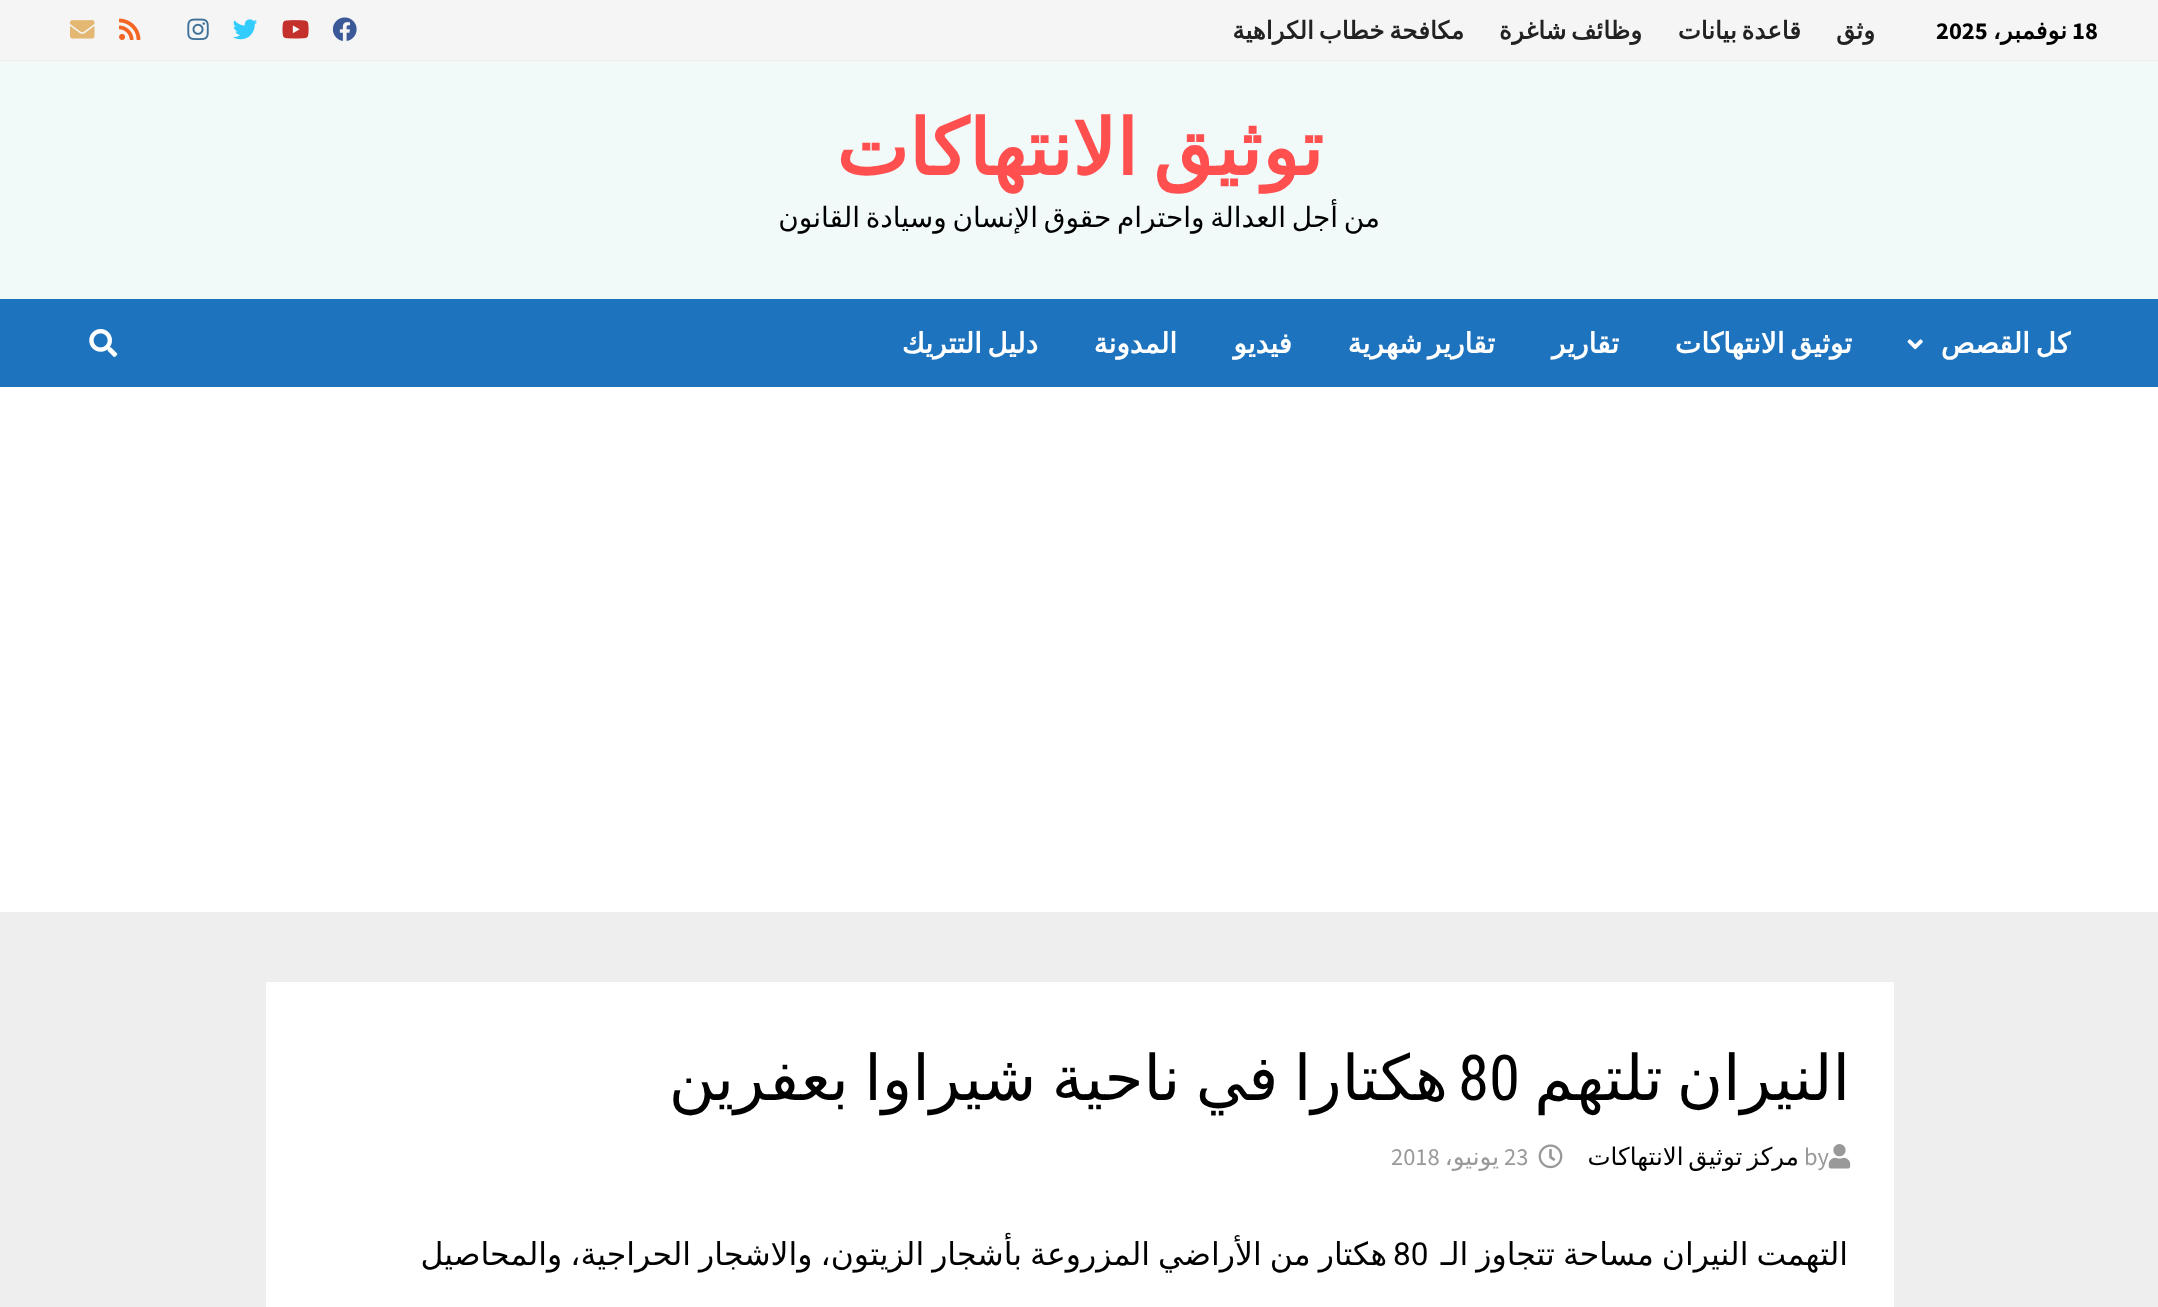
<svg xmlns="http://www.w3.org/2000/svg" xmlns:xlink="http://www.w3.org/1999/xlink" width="2158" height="1307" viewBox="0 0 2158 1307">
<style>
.cls-1{font:bold 24.5px Source Sans Pro;fill:#000000}
.cls-2{font:bold 24.5px DejaVu Sans;direction:rtl;fill:#000000}
.cls-3{font:bold 24.5px DejaVu Sans;direction:rtl;fill:#222222}
.cls-4{font:bold 77px DejaVu Sans;direction:rtl;fill:#ff4f4f}
.cls-5{font:28px DejaVu Sans;direction:rtl;fill:#000000}
.cls-6{font:bold 28px DejaVu Sans;direction:rtl;fill:#ffffff}
.cls-7{font:63px DejaVu Sans;direction:rtl;fill:#000000}
.cls-8{font:63px Roboto Condensed;fill:#000000}
.cls-9{font:24.5px Source Sans Pro;fill:#999999}
.cls-10{font:24.5px DejaVu Sans;direction:rtl;fill:#000000}
.cls-11{font:24.5px DejaVu Sans;direction:rtl;fill:#999999}
.cls-12{font:31.5px DejaVu Sans;direction:rtl;fill:#000000}
.cls-13{font:31.5px Roboto;fill:#000000}
</style>
<rect width="100%" height="100%" fill="#ffffff"/>
<rect fill="#f5f5f5" x="0" y="0" width="2158" height="60"/>
<rect fill="#eeeeee" x="0" y="60" width="2158" height="1"/>
<image xlink:href="image0.png" x="332" y="17" width="25" height="24"/>
<image xlink:href="image1.png" x="282" y="20" width="27" height="19"/>
<image xlink:href="image2.png" x="233" y="19" width="25" height="21"/>
<image xlink:href="image3.png" x="187" y="18" width="22" height="22"/>
<image xlink:href="image4.png" x="119" y="18" width="22" height="22"/>
<image xlink:href="image5.png" x="70" y="20" width="25" height="19"/>
<rect fill="#f2f9f9" x="0" y="61" width="2158" height="238"/>
<rect fill="#1e73be" x="0" y="299" width="2158" height="88"/>
<image xlink:href="image6.png" x="1907" y="339" width="16" height="11"/>
<image xlink:href="image7.png" x="89" y="329" width="29" height="28"/>
<rect fill="#eeeeee" x="0" y="912" width="2158" height="395"/>
<rect fill="#ffffff" x="266" y="982" width="1628" height="325"/>
<image xlink:href="image8.png" x="1828" y="1144" width="23" height="25"/>
<image xlink:href="image9.png" x="1538" y="1144" width="25" height="25"/>
<text class="cls-1" x="2072" y="39">18</text>
<text class="cls-2" x="2067" y="39">نوفمبر،</text>
<text class="cls-1" x="1936" y="39">2025</text>
<text class="cls-3" x="1875" y="39">وثق</text>
<text class="cls-3" x="1801" y="39" word-spacing="-3">قاعدة بيانات</text>
<text class="cls-3" x="1642" y="39" word-spacing="-3">وظائف شاغرة</text>
<text class="cls-3" x="1464" y="39" word-spacing="-3">مكافحة خطاب الكراهية</text>
<text class="cls-4" x="1323" y="175" word-spacing="-9">توثيق الانتهاكات</text>
<text class="cls-5" x="1380" y="227" word-spacing="-3.25">من أجل العدالة واحترام حقوق الإنسان وسيادة القانون</text>
<text class="cls-6" x="2070" y="353" word-spacing="-3.25">كل القصص</text>
<text class="cls-6" x="1852" y="353" word-spacing="-3.25">توثيق الانتهاكات</text>
<text class="cls-6" x="1619" y="353">تقارير</text>
<text class="cls-6" x="1495" y="353" word-spacing="-3.25">تقارير شهرية</text>
<text class="cls-6" x="1292" y="353">فيديو</text>
<text class="cls-6" x="1177" y="353">المدونة</text>
<text class="cls-6" x="1038" y="353" word-spacing="-3.25">دليل التتريك</text>
<text class="cls-7" x="1850" y="1100" word-spacing="-6">النيران تلتهم</text>
<text class="cls-7" x="1448" y="1100" word-spacing="-4.5">هكتارا في ناحية شيراوا بعفرين</text>
<text class="cls-8" x="1458" y="1100">80</text>
<text class="cls-9" x="1804" y="1165">by</text>
<text class="cls-10" x="1799" y="1165" word-spacing="-3">مركز توثيق الانتهاكات</text>
<text class="cls-9" x="1504" y="1165">23</text>
<text class="cls-11" x="1499" y="1165">يونيو،</text>
<text class="cls-9" x="1391" y="1165">2018</text>
<text class="cls-12" x="1848" y="1265" word-spacing="-2">التهمت النيران مساحة تتجاوز الـ</text>
<text class="cls-12" x="1387" y="1265" word-spacing="-2">هكتار من الأراضي المزروعة بأشجار الزيتون، والاشجار الحراجية، والمحاصيل</text>
<text class="cls-13" x="1393" y="1265">80</text>
</svg>
